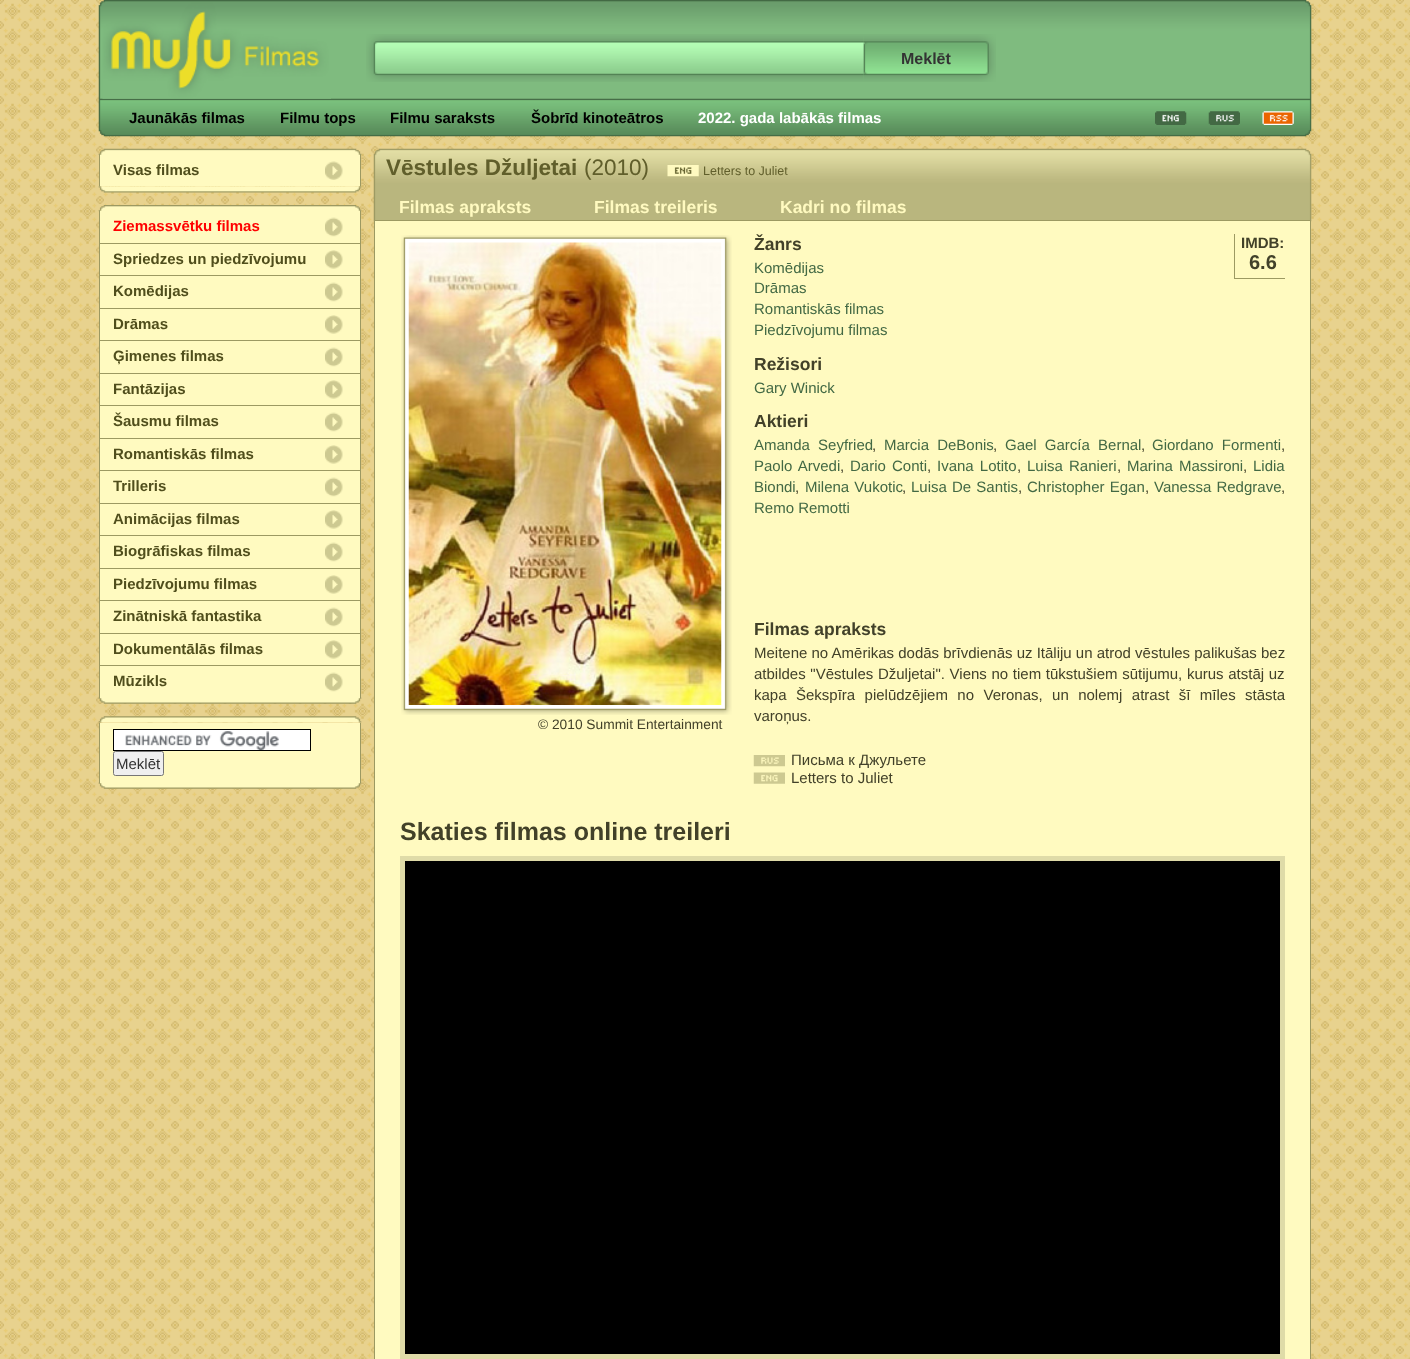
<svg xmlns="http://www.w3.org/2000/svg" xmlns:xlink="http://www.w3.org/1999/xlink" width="1410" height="1359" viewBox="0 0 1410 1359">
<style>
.cls-1{font:bold 16px Liberation Sans;fill:#333333}
.cls-2{font:bold 15px Liberation Sans;fill:#000000}
.cls-3{font:bold 15px Liberation Sans;fill:#ffffff}
.cls-4{font:bold 15px Liberation Sans;fill:#504e1c}
.cls-5{font:bold 15px Liberation Sans;fill:#ff0000}
.cls-6{font:15px Liberation Sans;fill:#333333}
.cls-7{font:bold 22.5px Liberation Sans;fill:#605e2b}
.cls-8{font:22.5px Liberation Sans;fill:#605e2b}
.cls-9{font:12.5px Liberation Sans;fill:#605e2b}
.cls-10{font:bold 17.5px Liberation Sans;fill:#fffac0}
.cls-11{font:13.75px Liberation Sans;fill:#424129}
.cls-12{font:bold 17.5px Liberation Sans;fill:#424129}
.cls-13{font:bold 15px Liberation Sans;fill:#424129}
.cls-14{font:bold 20px Liberation Sans;fill:#424129}
.cls-15{font:15px Liberation Sans;fill:#436944}
.cls-16{font:15px Liberation Sans;fill:#424129}
.cls-17{font:bold 25px Liberation Sans;fill:#424129}
</style>
<rect width="100%" height="100%" fill="#ffffff"/>
<image xlink:href="image0.png" x="0" y="0" width="1410" height="1359"/>
<image xlink:href="image1.png" x="98" y="0" width="1214" height="137"/>
<image xlink:href="image2.png" x="102" y="2" width="229" height="97"/>
<image xlink:href="image3.png" x="366" y="34" width="498" height="48"/>
<image xlink:href="image4.png" x="863" y="34" width="133" height="48"/>
<image xlink:href="image5.png" x="1155" y="111" width="32" height="14"/>
<image xlink:href="image6.png" x="1208" y="111" width="32" height="14"/>
<image xlink:href="image7.png" x="1262" y="111" width="32" height="14"/>
<image xlink:href="image8.png" x="98" y="148" width="264" height="7"/>
<image xlink:href="image9.png" x="98" y="186" width="264" height="7"/>
<rect fill="#fffac0" x="100" y="155" width="260" height="31"/>
<rect fill="#9c9962" x="360" y="155" width="1" height="31"/>
<rect fill="#9c9962" x="99" y="155" width="1" height="31"/>
<image xlink:href="image10.png" x="325" y="161" width="18" height="19"/>
<image xlink:href="image11.png" x="98" y="205" width="264" height="7"/>
<image xlink:href="image12.png" x="98" y="697" width="264" height="7"/>
<rect fill="#fffac0" x="100" y="211" width="260" height="487"/>
<rect fill="#9c9962" x="360" y="211" width="1" height="487"/>
<rect fill="#9c9962" x="99" y="211" width="1" height="487"/>
<rect fill="#9c9962" x="100" y="243" width="260" height="1"/>
<image xlink:href="image13.png" x="325" y="217" width="18" height="20"/>
<rect fill="#9c9962" x="100" y="275" width="260" height="1"/>
<image xlink:href="image14.png" x="325" y="250" width="18" height="19"/>
<rect fill="#9c9962" x="100" y="308" width="260" height="1"/>
<image xlink:href="image15.png" x="325" y="282" width="18" height="20"/>
<rect fill="#9c9962" x="100" y="340" width="260" height="1"/>
<image xlink:href="image14.png" x="325" y="315" width="18" height="19"/>
<rect fill="#9c9962" x="100" y="373" width="260" height="1"/>
<image xlink:href="image13.png" x="325" y="347" width="18" height="20"/>
<rect fill="#9c9962" x="100" y="405" width="260" height="1"/>
<image xlink:href="image14.png" x="325" y="380" width="18" height="19"/>
<rect fill="#9c9962" x="100" y="438" width="260" height="1"/>
<image xlink:href="image13.png" x="325" y="412" width="18" height="20"/>
<rect fill="#9c9962" x="100" y="470" width="260" height="1"/>
<image xlink:href="image14.png" x="325" y="445" width="18" height="19"/>
<rect fill="#9c9962" x="100" y="503" width="260" height="1"/>
<image xlink:href="image13.png" x="325" y="477" width="18" height="20"/>
<rect fill="#9c9962" x="100" y="535" width="260" height="1"/>
<image xlink:href="image14.png" x="325" y="510" width="18" height="19"/>
<rect fill="#9c9962" x="100" y="568" width="260" height="1"/>
<image xlink:href="image13.png" x="325" y="542" width="18" height="20"/>
<rect fill="#9c9962" x="100" y="600" width="260" height="1"/>
<image xlink:href="image16.png" x="325" y="575" width="18" height="19"/>
<rect fill="#9c9962" x="100" y="633" width="260" height="1"/>
<image xlink:href="image13.png" x="325" y="607" width="18" height="20"/>
<rect fill="#9c9962" x="100" y="665" width="260" height="1"/>
<image xlink:href="image14.png" x="325" y="640" width="18" height="19"/>
<image xlink:href="image13.png" x="325" y="672" width="18" height="20"/>
<image xlink:href="image17.png" x="98" y="716" width="264" height="7"/>
<image xlink:href="image18.png" x="98" y="782" width="264" height="7"/>
<rect fill="#fffac0" x="100" y="723" width="260" height="60"/>
<rect fill="#9c9962" x="360" y="723" width="1" height="60"/>
<rect fill="#9c9962" x="99" y="723" width="1" height="60"/>
<rect fill="#ffffff" x="114" y="730" width="196" height="20"/>
<image xlink:href="image19.png" x="125" y="731" width="154" height="19"/>
<rect fill="none" stroke="#000000" x="113.5" y="729.5" width="197" height="21"/>
<rect fill="#efefef" stroke="#767676" x="113.5" y="751.5" width="50" height="24" rx="2"/>
<image xlink:href="image20.png" x="373" y="148" width="939" height="74"/>
<rect fill="#9c9962" x="374" y="220" width="937" height="1"/>
<image xlink:href="image21.png" x="667" y="165" width="32" height="12"/>
<rect fill="#fffac0" x="375" y="221" width="935" height="1138"/>
<rect fill="#9c9962" x="1310" y="221" width="1" height="1138"/>
<rect fill="#9c9962" x="374" y="221" width="1" height="1138"/>
<image xlink:href="image22.png" x="401" y="235" width="331" height="480"/>
<image xlink:href="image23.png" x="408" y="242" width="314" height="463"/>
<rect fill="#9c9962" x="1234" y="278" width="51" height="1"/>
<rect fill="#9c9962" x="1234" y="234" width="1" height="45"/>
<image xlink:href="image24.png" x="753" y="755" width="32" height="12"/>
<image xlink:href="image25.png" x="753" y="772" width="32" height="12"/>
<rect fill="#000000" stroke="#dfdba8" stroke-width="5" x="402.5" y="858.5" width="880" height="498"/>
<text class="cls-1" x="901" y="64">Meklēt</text>
<text class="cls-2" x="129" y="123">Jaunākās filmas</text>
<text class="cls-2" x="280" y="123">Filmu tops</text>
<text class="cls-2" x="390" y="123">Filmu saraksts</text>
<text class="cls-2" x="531" y="123">Šobrīd kinoteātros</text>
<text class="cls-3" x="698" y="123">2022. gada labākās filmas</text>
<text class="cls-4" x="113" y="175">Visas filmas</text>
<text class="cls-5" x="113" y="231">Ziemassvētku filmas</text>
<text class="cls-4" x="113" y="264">Spriedzes un piedzīvojumu</text>
<text class="cls-4" x="113" y="296">Komēdijas</text>
<text class="cls-4" x="113" y="329">Drāmas</text>
<text class="cls-4" x="113" y="361">Ģimenes filmas</text>
<text class="cls-4" x="113" y="394">Fantāzijas</text>
<text class="cls-4" x="113" y="426">Šausmu filmas</text>
<text class="cls-4" x="113" y="459">Romantiskās filmas</text>
<text class="cls-4" x="113" y="491">Trilleris</text>
<text class="cls-4" x="113" y="524">Animācijas filmas</text>
<text class="cls-4" x="113" y="556">Biogrāfiskas filmas</text>
<text class="cls-4" x="113" y="589">Piedzīvojumu filmas</text>
<text class="cls-4" x="113" y="621">Zinātniskā fantastika</text>
<text class="cls-4" x="113" y="654">Dokumentālās filmas</text>
<text class="cls-4" x="113" y="686">Mūzikls</text>
<text class="cls-6" x="116" y="769">Meklēt</text>
<text class="cls-7" x="386" y="175">Vēstules Džuljetai</text>
<text class="cls-8" x="584" y="175">(2010)</text>
<text class="cls-9" x="703" y="175">Letters to Juliet</text>
<text class="cls-10" x="399" y="213">Filmas apraksts</text>
<text class="cls-10" x="594" y="213">Filmas treileris</text>
<text class="cls-10" x="780" y="213">Kadri no filmas</text>
<text class="cls-11" x="538" y="729">© 2010 Summit Entertainment</text>
<text class="cls-12" x="754" y="250">Žanrs</text>
<text class="cls-13" x="1241" y="248">IMDB:</text>
<text class="cls-14" x="1249" y="269">6.6</text>
<text class="cls-15"><tspan x="754" y="273">Komēdijas</tspan><tspan x="754" y="293">Drāmas</tspan><tspan x="754" y="314">Romantiskās filmas</tspan><tspan x="754" y="335">Piedzīvojumu filmas</tspan></text>
<text class="cls-12" x="754" y="370">Režisori</text>
<text class="cls-15" x="754" y="393">Gary Winick</text>
<text class="cls-12" x="754" y="427">Aktieri</text>
<text class="cls-15" x="754" y="450" word-spacing="4">Amanda Seyfried</text>
<text class="cls-16" x="872" y="450">,</text>
<text class="cls-15" x="884" y="450" word-spacing="4">Marcia DeBonis</text>
<text class="cls-16" x="993" y="450">,</text>
<text class="cls-15" x="1005" y="450" word-spacing="4">Gael García Bernal</text>
<text class="cls-16" x="1141" y="450">,</text>
<text class="cls-15" x="1152" y="450" word-spacing="4">Giordano Formenti</text>
<text class="cls-16" x="1281" y="450">,</text>
<text class="cls-15" x="754" y="471" word-spacing="2">Paolo Arvedi</text>
<text class="cls-16" x="840" y="471">,</text>
<text class="cls-15" x="850" y="471" word-spacing="2">Dario Conti</text>
<text class="cls-16" x="927" y="471">,</text>
<text class="cls-15" x="937" y="471" word-spacing="2">Ivana Lotito</text>
<text class="cls-16" x="1017" y="471">,</text>
<text class="cls-15" x="1027" y="471" word-spacing="2">Luisa Ranieri</text>
<text class="cls-16" x="1117" y="471">,</text>
<text class="cls-15" x="1127" y="471" word-spacing="2">Marina Massironi</text>
<text class="cls-16" x="1243" y="471">,</text>
<text class="cls-15" x="1253" y="471">Lidia</text>
<text class="cls-15" x="754" y="492">Biondi</text>
<text class="cls-16" x="795" y="492">,</text>
<text class="cls-15" x="805" y="492" word-spacing="1">Milena Vukotic</text>
<text class="cls-16" x="902" y="492">,</text>
<text class="cls-15" x="911" y="492" word-spacing="1">Luisa De Santis</text>
<text class="cls-16" x="1018" y="492">,</text>
<text class="cls-15" x="1027" y="492" word-spacing="1">Christopher Egan</text>
<text class="cls-16" x="1145" y="492">,</text>
<text class="cls-15" x="1154" y="492" word-spacing="1">Vanessa Redgrave</text>
<text class="cls-16" x="1281" y="492">,</text>
<text class="cls-15" x="754" y="513">Remo Remotti</text>
<text class="cls-12" x="754" y="635">Filmas apraksts</text>
<text class="cls-16"><tspan x="754" y="658">Meitene no Amērikas dodās brīvdienās uz Itāliju un atrod vēstules palikušas bez</tspan><tspan x="754" y="679" word-spacing="0.5">atbildes "Vēstules Džuljetai". Viens no tiem tūkstušiem sūtijumu, kurus atstāj uz</tspan><tspan x="754" y="700" word-spacing="5.25">kapa Šekspīra pielūdzējiem no Veronas, un nolemj atrast šī mīles stāsta</tspan><tspan x="754" y="721">varoņus.</tspan></text>
<text class="cls-16"><tspan x="791" y="765">Письма к Джульете</tspan><tspan x="791" y="783">Letters to Juliet</tspan></text>
<text class="cls-17" x="400" y="840">Skaties filmas online treileri</text>
</svg>
